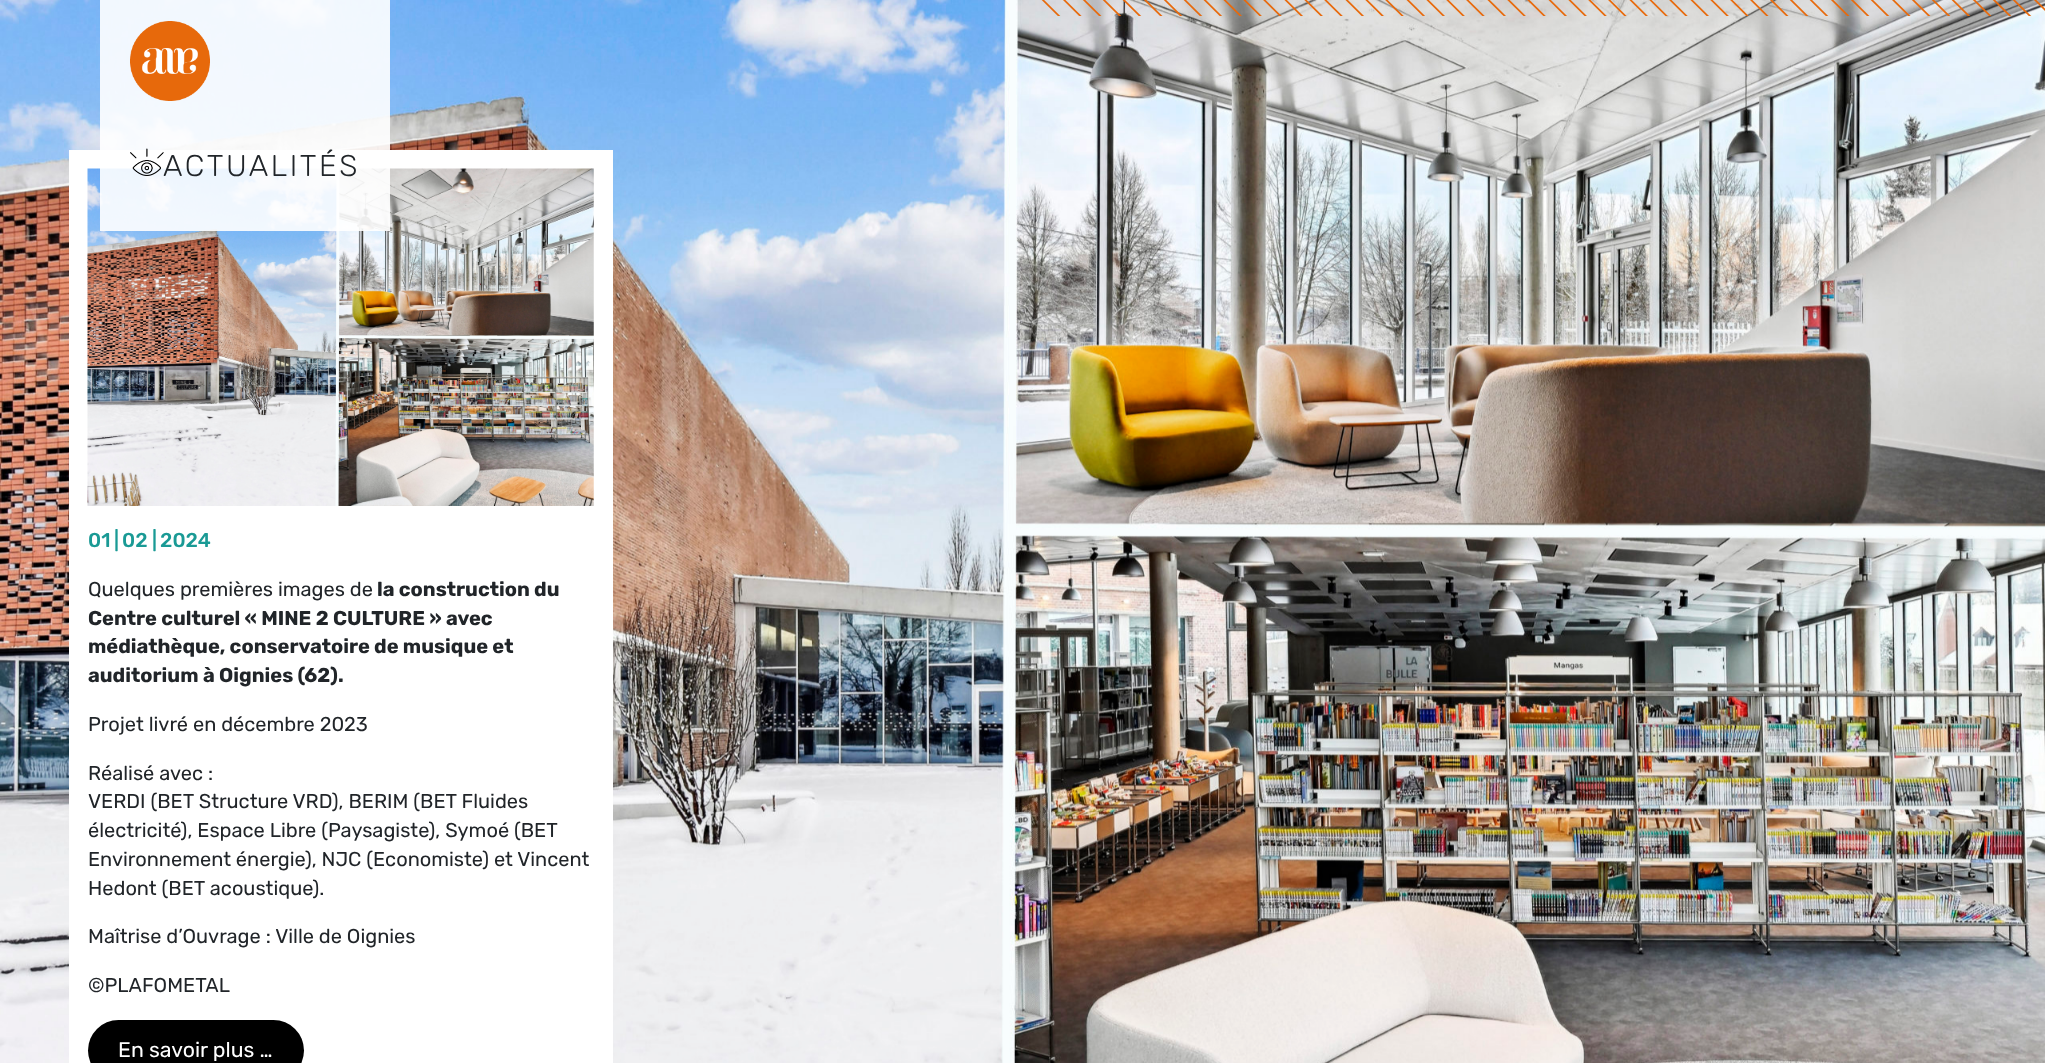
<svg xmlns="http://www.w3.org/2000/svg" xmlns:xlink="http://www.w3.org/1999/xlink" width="2045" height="1063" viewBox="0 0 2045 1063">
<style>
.cls-1{font:300 30px Rubik;letter-spacing:2.5px;fill:#212529}
.cls-2{font:500 20px Rubik;fill:#1a9a95}
.cls-3{font:20px Rubik;fill:#212529}
.cls-4{font:bold 20px Rubik;fill:#212529}
.cls-5{font:21.25px Rubik;fill:#ffffff}
</style>
<rect width="100%" height="100%" fill="#ffffff"/>
<image xlink:href="image1.png" x="0" y="0" width="2045" height="1063"/>
<image xlink:href="image0.png" x="1041" y="0" width="1004" height="16"/>
<rect fill="#ffffff" x="69" y="150" width="544" height="913"/>
<image xlink:href="image4.png" x="87" y="168" width="507" height="338"/>
<rect fill="#ffffff" fill-opacity="0.9" x="100" y="0" width="290" height="231"/>
<image xlink:href="image2.png" x="130" y="21" width="80" height="80"/>
<image xlink:href="image3.png" x="130" y="148" width="34" height="28"/>
<rect fill="#000000" x="88" y="1020" width="216" height="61" rx="30.5"/>
<text class="cls-1" x="163" y="176">ACTUALITÉS</text>
<text class="cls-2" x="88" y="547">01</text>
<text class="cls-2" x="114" y="547">|</text>
<text class="cls-2" x="122" y="547">02</text>
<text class="cls-2" x="152" y="547">|</text>
<text class="cls-2" x="160" y="547">2024</text>
<text class="cls-3" x="88" y="596">Quelques premières images de</text>
<text class="cls-4" x="377" y="596">la construction du</text>
<text class="cls-4"><tspan x="88" y="625">Centre culturel « MINE 2 CULTURE » avec</tspan><tspan x="88" y="653">médiathèque, conservatoire de musique et</tspan><tspan x="88" y="682">auditorium</tspan></text>
<text class="cls-4" x="203" y="682">à Oignies (62).</text>
<text class="cls-3" x="88" y="731">Projet livré en décembre 2023</text>
<text class="cls-3"><tspan x="88" y="780">Réalisé avec :</tspan><tspan x="88" y="808">VERDI (BET Structure VRD), BERIM (BET Fluides</tspan><tspan x="88" y="837">électricité), Espace Libre (Paysagiste), Symoé (BET</tspan><tspan x="88" y="866">Environnement énergie), NJC (Economiste) et Vincent</tspan><tspan x="88" y="895">Hedont (BET acoustique).</tspan></text>
<text class="cls-3" x="88" y="943">Maîtrise d’Ouvrage : Ville de Oignies</text>
<text class="cls-3" x="88" y="992">©PLAFOMETAL</text>
<text class="cls-5" x="118" y="1057">En savoir plus …</text>
</svg>
